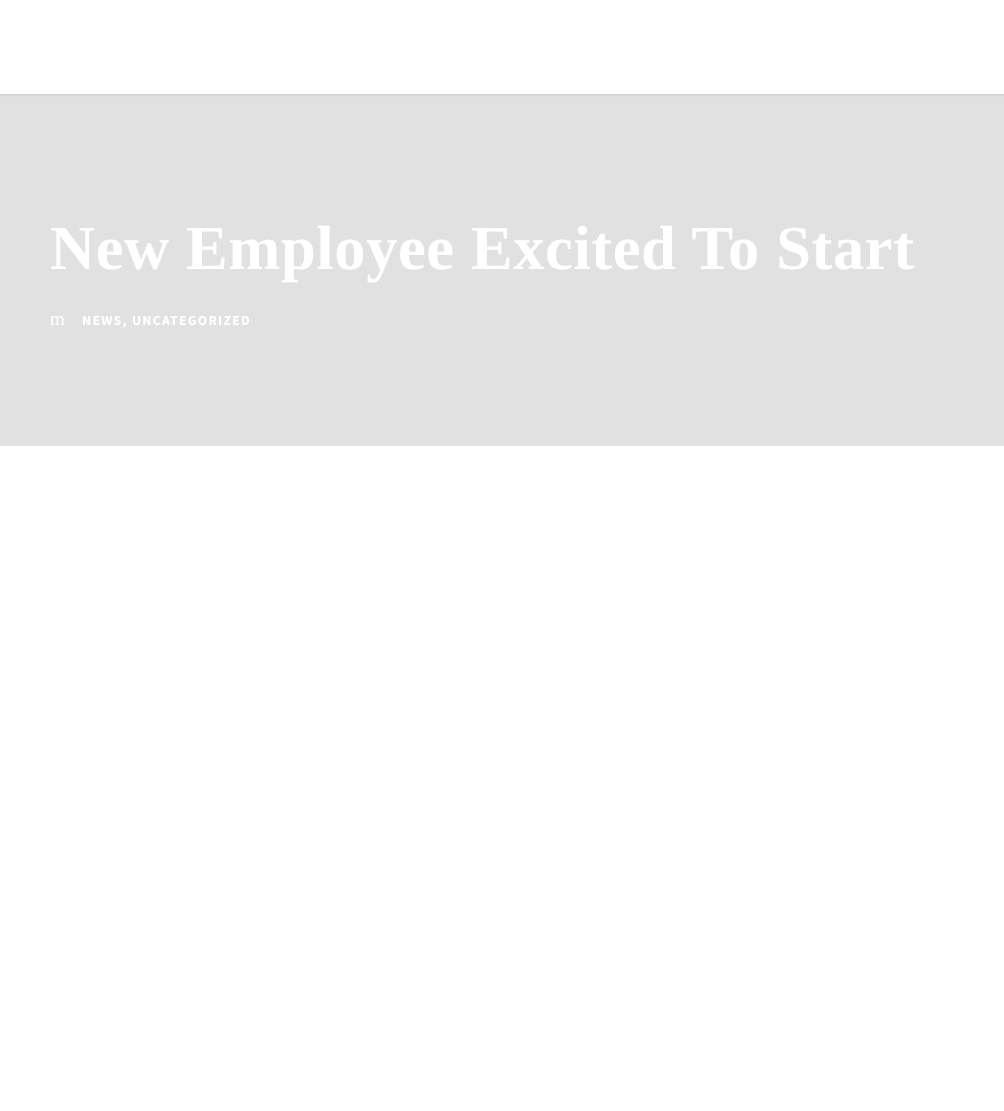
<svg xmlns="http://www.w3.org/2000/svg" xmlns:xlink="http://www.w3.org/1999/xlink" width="1004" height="1111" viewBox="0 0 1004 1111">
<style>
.cls-1{font:bold 62.5px Liberation Serif;letter-spacing:0.6px;fill:#ffffff}
.cls-2{font:19px Liberation Serif;letter-spacing:1.25px;fill:#ffffff}
.cls-3{font:bold 13.75px Source Sans Pro;letter-spacing:1.25px;fill:#ffffff}
</style>
<rect width="100%" height="100%" fill="#ffffff"/>
<rect fill="#e1e1e1" x="0" y="94" width="1004" height="352"/>
<rect fill="#000000" fill-opacity="0.1" filter="blur(1px)" x="0" y="1" width="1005" height="94"/>
<rect fill="#ffffff" x="0" y="0" width="1004" height="94"/>
<text class="cls-1" x="50" y="269">New Employee Excited To Start</text>
<text class="cls-2" x="50" y="325">m</text>
<text class="cls-3" x="82" y="325">NEWS, UNCATEGORIZED</text>
</svg>
